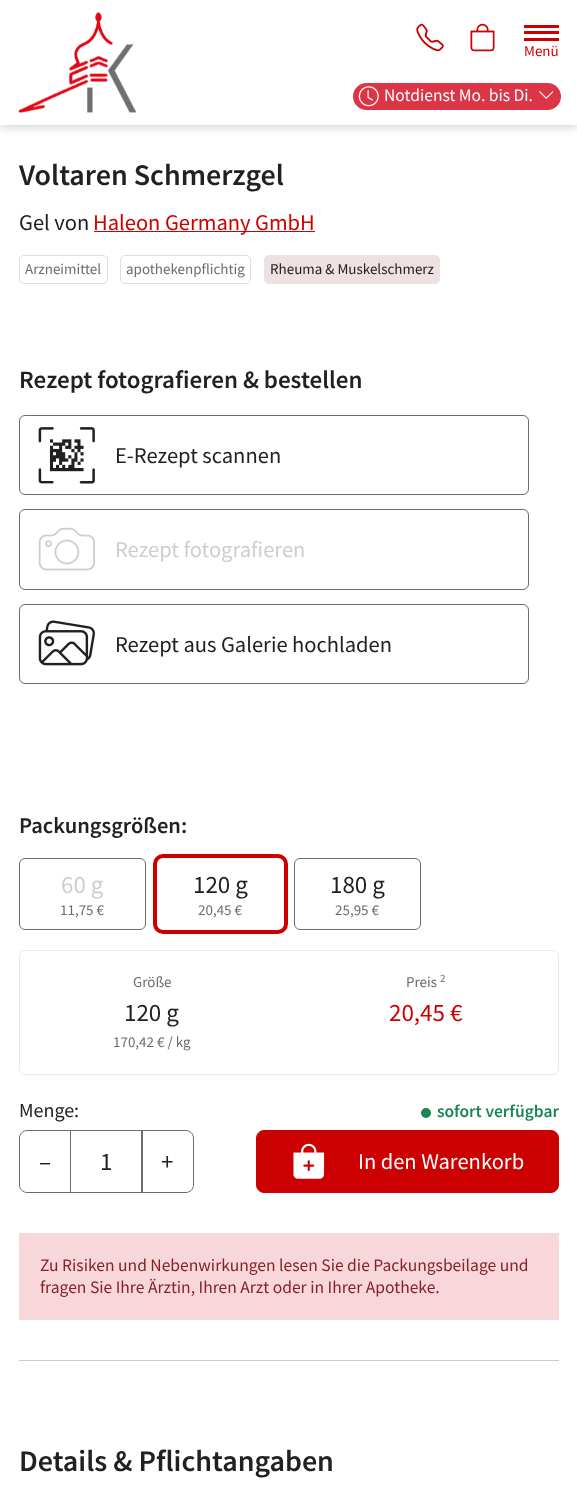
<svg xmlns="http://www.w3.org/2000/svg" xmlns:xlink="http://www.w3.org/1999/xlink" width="577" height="1496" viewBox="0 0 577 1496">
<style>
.cls-1{font:15px Source Sans Pro;fill:#cc0000}
.cls-2{font:17.5px Source Sans Pro;fill:#ffffff}
.cls-3{font:600 30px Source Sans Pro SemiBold;fill:#212121}
.cls-4{font:22.5px Source Sans Pro;fill:#212121}
.cls-5{font:22.5px Source Sans Pro;fill:#cc0000}
.cls-6{font:15px Source Sans Pro;fill:#6c6c6c}
.cls-7{font:15px Source Sans Pro;fill:#212121}
.cls-8{font:600 25px Source Sans Pro SemiBold;fill:#212121}
.cls-9{font:22.5px Source Sans Pro;fill:#cecece}
.cls-10{font:600 22.5px Source Sans Pro SemiBold;fill:#212121}
.cls-11{font:25px Source Sans Pro;fill:#cecece}
.cls-12{font:25px Source Sans Pro;fill:#212121}
.cls-13{font:11px Source Sans Pro;fill:#6c6c6c}
.cls-14{font:25px Source Sans Pro;fill:#cc0000}
.cls-15{font:20px Source Sans Pro;fill:#212121}
.cls-16{font:600 17.5px Source Sans Pro SemiBold;fill:#198754}
.cls-17{font:22.5px Source Sans Pro;fill:#ffffff}
.cls-18{font:17.5px Source Sans Pro;fill:#842029}
</style>
<rect width="100%" height="100%" fill="#ffffff"/>
<rect fill="#000000" fill-opacity="0.25" filter="blur(6px)" x="0" y="0" width="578" height="125"/>
<rect fill="#ffffff" x="0" y="0" width="577" height="125"/>
<image xlink:href="image0.png" x="18" y="12" width="119" height="101"/>
<image xlink:href="image1.png" x="416" y="23" width="28" height="29"/>
<image xlink:href="image2.png" x="470" y="23" width="25" height="29"/>
<rect fill="#cc0000" x="524" y="31" width="35" height="3"/>
<rect fill="#cc0000" x="524" y="25" width="35" height="3"/>
<rect fill="#cc0000" x="524" y="38" width="35" height="3"/>
<rect fill="#dc3545" x="353" y="83" width="208" height="27" rx="13.5"/>
<image xlink:href="image3.png" x="358" y="86" width="21" height="21"/>
<image xlink:href="image4.png" x="539" y="91" width="15" height="8"/>
<rect fill="#cc0000" x="94" y="231" width="221" height="1"/>
<rect fill="none" stroke="#dedede" x="19.5" y="255.5" width="88" height="28" rx="4.5"/>
<rect fill="none" stroke="#dedede" x="120.5" y="255.5" width="130" height="28" rx="4.5"/>
<rect fill="#ede1e2" stroke="#ede1e2" x="264.5" y="255.5" width="175" height="28" rx="4.5"/>
<rect fill="none" stroke="#6c6c6c" x="19.5" y="415.5" width="509" height="79" rx="5.5"/>
<image xlink:href="image5.png" x="38" y="427" width="57" height="57"/>
<rect fill="none" stroke="#6c6c6c" x="19.5" y="509.5" width="509" height="80" rx="5.5"/>
<image xlink:href="image6.png" x="38" y="527" width="57" height="44"/>
<rect fill="none" stroke="#6c6c6c" x="19.5" y="604.5" width="509" height="79" rx="5.5"/>
<image xlink:href="image7.png" x="38" y="620" width="57" height="46"/>
<rect fill="none" stroke="#6c6c6c" x="19.5" y="858.5" width="126" height="71" rx="5.5"/>
<rect fill="none" stroke="#cc0000" stroke-width="4" x="155" y="856" width="131" height="76" rx="8"/>
<rect fill="none" stroke="#6c6c6c" x="294.5" y="858.5" width="126" height="71" rx="5.5"/>
<rect fill="none" stroke="#e9e9e9" x="19.5" y="950.5" width="539" height="124" rx="5.5"/>
<circle fill="#198754" cx="426" cy="1113" r="5"/>
<rect fill="none" stroke="#6c6c6c" x="70.5" y="1130.5" width="72" height="62"/>
<path fill="none" stroke="#6c6c6c" d="M27 1130.5H70.5V1192.5H27C23 1192.5 19.5 1189 19.5 1185V1138C19.5 1134 23 1130.5 27 1130.5Z"/>
<path fill="none" stroke="#6c6c6c" d="M141.5 1130.5H186C190 1130.5 193.5 1134 193.5 1138V1185C193.5 1189 190 1192.5 186 1192.5H141.5Z"/>
<rect fill="#cc0000" stroke="#cc0000" x="256.5" y="1130.5" width="302" height="62" rx="7.5"/>
<image xlink:href="image8.png" x="293" y="1143" width="32" height="36"/>
<rect fill="#f8d7da" x="19" y="1233" width="540" height="87"/>
<rect fill="#cccccc" x="19" y="1360" width="540" height="1"/>
<text class="cls-1" x="524" y="56">Menü</text>
<text class="cls-2" x="384" y="101">Notdienst Mo. bis Di.</text>
<text class="cls-3" x="19" y="185">Voltaren Schmerzgel</text>
<text class="cls-4" x="19" y="230">Gel von</text>
<text class="cls-5" x="93" y="230">Haleon Germany GmbH</text>
<text class="cls-6" x="25" y="274">Arzneimittel</text>
<text class="cls-6" x="126" y="274">apothekenpflichtig</text>
<text class="cls-7" x="270" y="274">Rheuma &amp; Muskelschmerz</text>
<text class="cls-8" x="19" y="388">Rezept fotografieren &amp; bestellen</text>
<text class="cls-4" x="115" y="463">E-Rezept scannen</text>
<text class="cls-9" x="115" y="557">Rezept fotografieren</text>
<text class="cls-4" x="115" y="652">Rezept aus Galerie hochladen</text>
<text class="cls-10" x="19" y="833">Packungsgrößen:</text>
<text class="cls-11" x="61" y="893">60 g</text>
<text class="cls-6" x="60" y="915">11,75 €</text>
<text class="cls-12" x="193" y="893">120 g</text>
<text class="cls-6" x="198" y="915">20,45 €</text>
<text class="cls-12" x="330" y="893">180 g</text>
<text class="cls-6" x="335" y="915">25,95 €</text>
<text class="cls-6" x="133" y="987">Größe</text>
<text class="cls-12" x="124" y="1021">120 g</text>
<text class="cls-6" x="113" y="1047">170,42 € / kg</text>
<text class="cls-6" x="406" y="987">Preis</text>
<text class="cls-13" x="440" y="982">2</text>
<text class="cls-14" x="389" y="1021">20,45 €</text>
<text class="cls-15" x="19" y="1117">Menge:</text>
<text class="cls-16" x="437" y="1117">sofort verfügbar</text>
<text class="cls-12" x="39" y="1170">–</text>
<text class="cls-12" x="100" y="1170">1</text>
<text class="cls-12" x="161" y="1170">+</text>
<text class="cls-17" x="358" y="1169">In den Warenkorb</text>
<text class="cls-18"><tspan x="40" y="1271">Zu Risiken und Nebenwirkungen lesen Sie die Packungsbeilage und</tspan><tspan x="40" y="1293">fragen Sie Ihre Ärztin, Ihren Arzt oder in Ihrer Apotheke.</tspan></text>
<text class="cls-3" x="19" y="1471">Details &amp; Pflichtangaben</text>
</svg>
